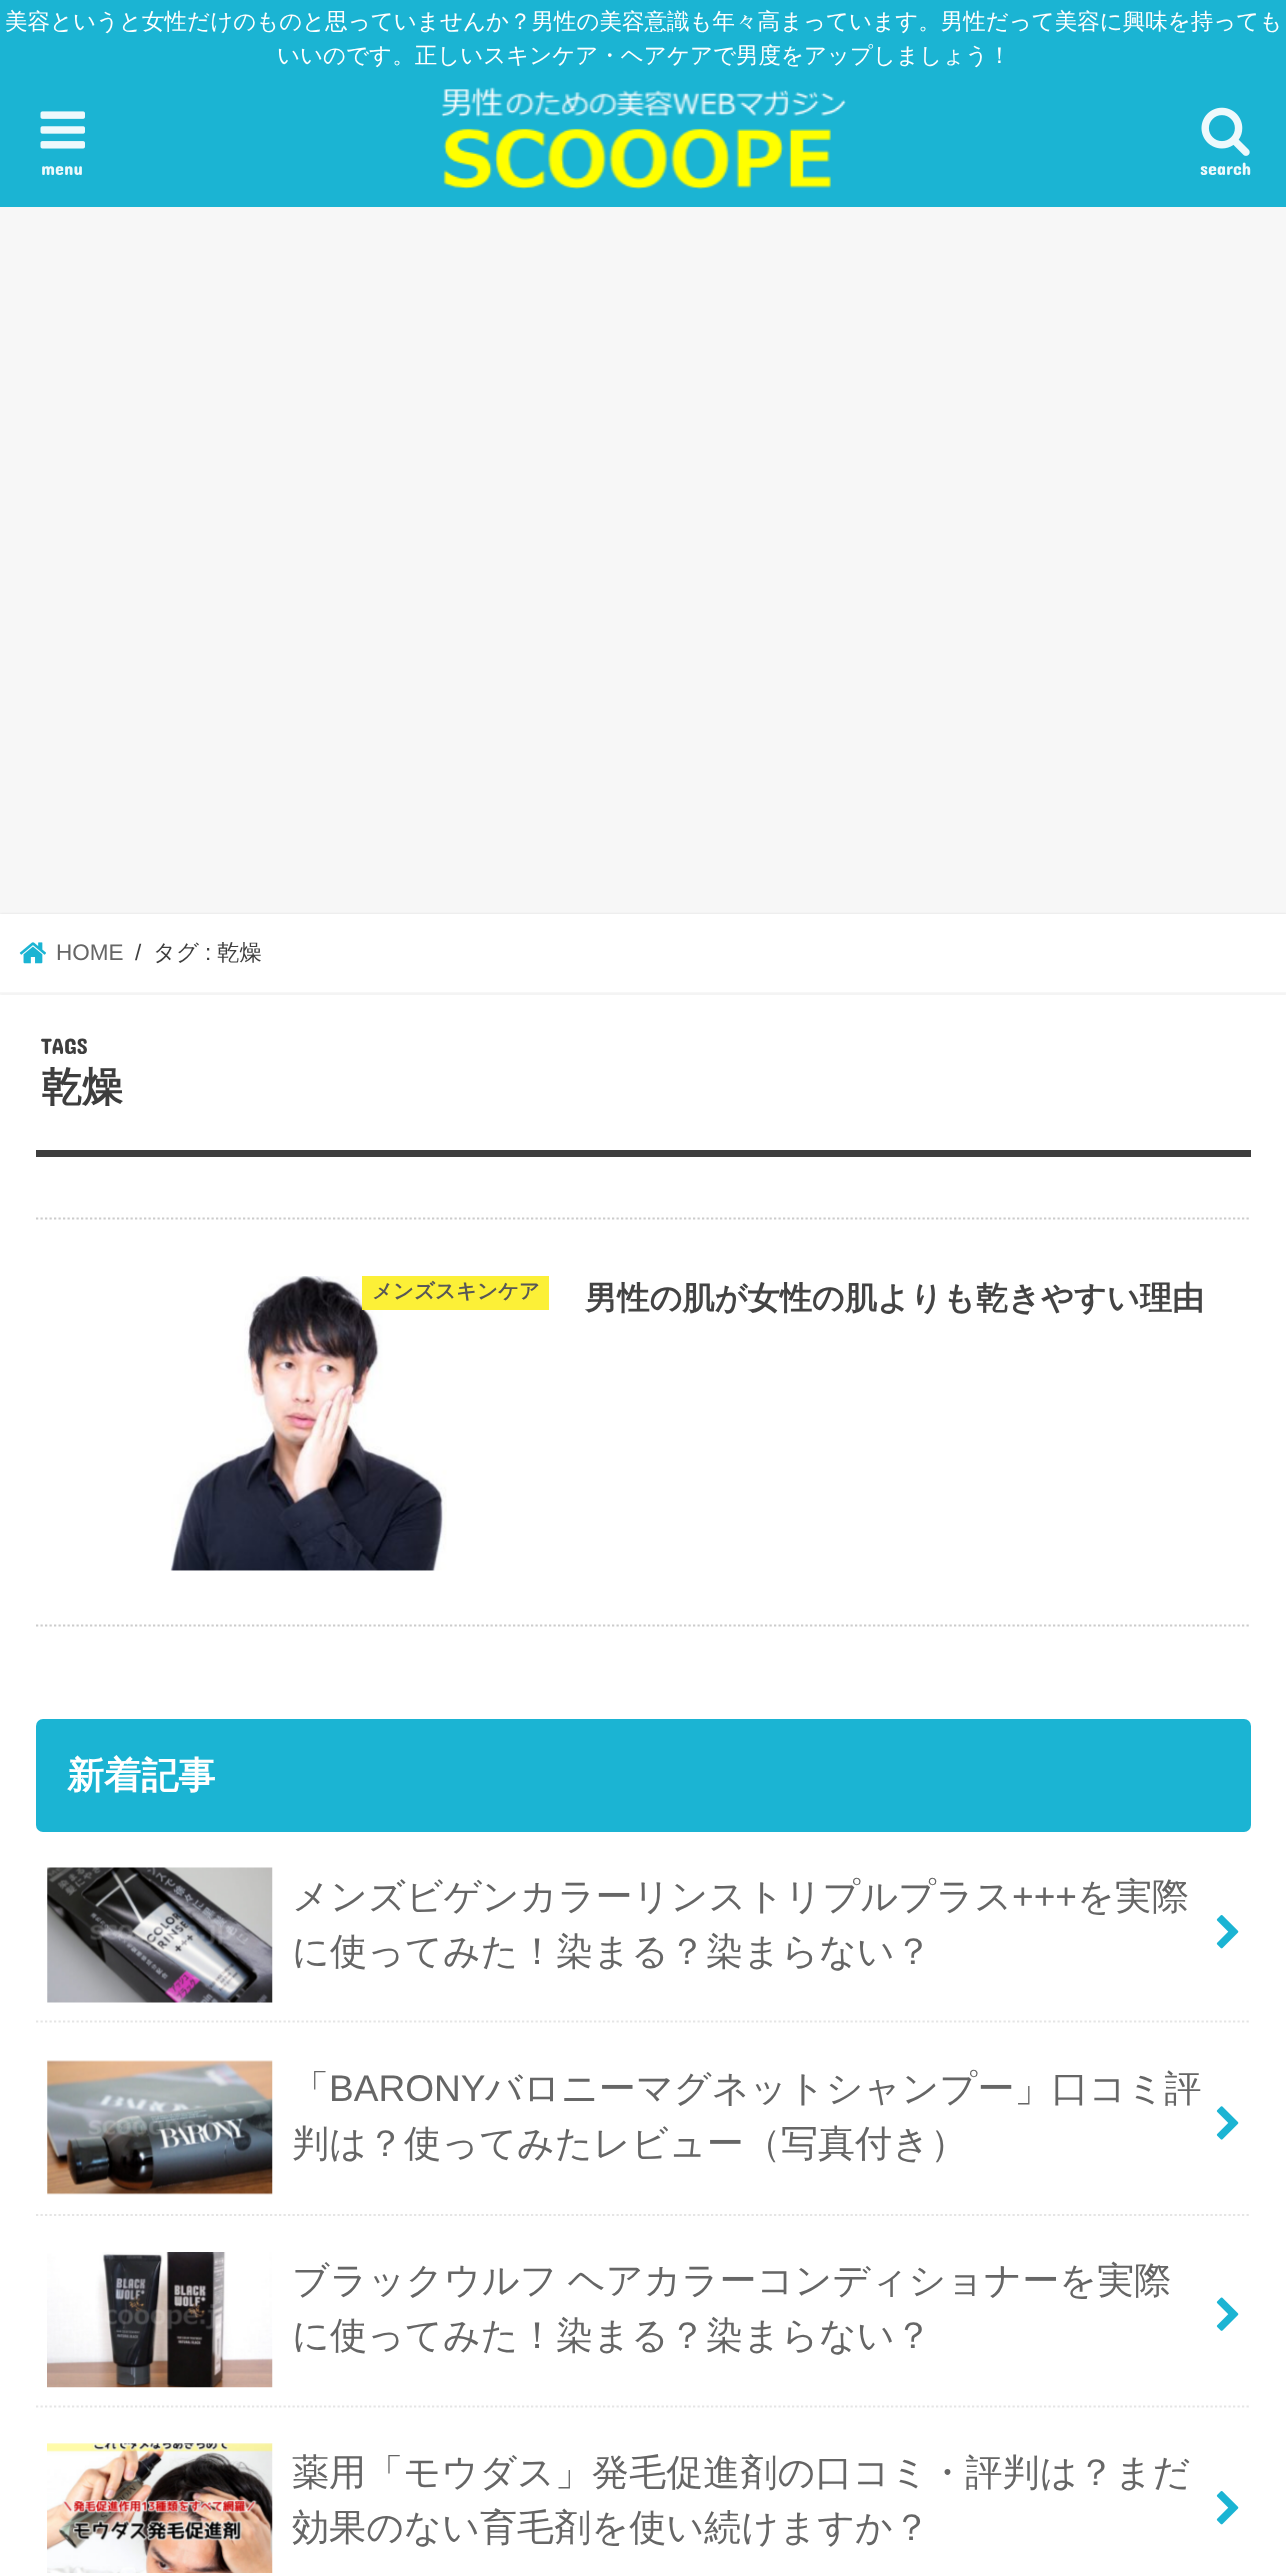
<svg xmlns="http://www.w3.org/2000/svg" xmlns:xlink="http://www.w3.org/1999/xlink" width="1286" height="2573" viewBox="0 0 1286 2573">
<style>
.cls-1{font:500 22.5px WenQuanYi Zen Hei;fill:#ffffff}
.cls-2{font:18px Concert One;fill:#edf9fc}
.cls-3{font:22.5px Liberation Sans;fill:#666666}
.cls-4{font:22.5px Liberation Sans;fill:#3e3e3e}
.cls-5{font:500 22.5px WenQuanYi Zen Hei;fill:#3e3e3e}
.cls-6{font:22.5px Concert One;fill:#3e3e3e}
.cls-7{font:bold 41px WenQuanYi Zen Hei;fill:#3e3e3e}
.cls-8{font:bold 20.5px WenQuanYi Zen Hei;fill:#575757}
.cls-9{font:bold 32.2px WenQuanYi Zen Hei;fill:#444444}
.cls-10{font:bold 37.1px WenQuanYi Zen Hei;fill:#ffffff}
.cls-11{font:500 37.1px WenQuanYi Zen Hei;fill:#666666}
.cls-12{font:37.1px Liberation Sans;fill:#666666}
</style>
<rect width="100%" height="100%" fill="#f7f7f7"/>
<rect fill="#1bb4d3" x="0" y="0" width="1286" height="207"/>
<image xlink:href="image0.png" x="40" y="111" width="45" height="38"/>
<image xlink:href="image1.png" x="441" y="87" width="405" height="102"/>
<image xlink:href="image2.png" x="1201" y="107" width="49" height="49"/>
<rect fill="#dddddd" filter="blur(1px)" x="0" y="914" width="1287" height="81"/>
<rect fill="#ffffff" x="0" y="914" width="1286" height="81"/>
<rect fill="#f7f7f7" x="0" y="992" width="1286" height="2"/>
<image xlink:href="image3.png" x="19" y="942" width="27" height="22"/>
<rect fill="#dddddd" filter="blur(1px)" x="0" y="995" width="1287" height="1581"/>
<rect fill="#ffffff" x="0" y="995" width="1286" height="1578"/>
<rect fill="#3e3e3e" x="36" y="1150" width="1215" height="7"/>
<path fill="none" stroke="#cccccc" stroke-width="2.2" stroke-dasharray="2.25 2.25" d="M36 1218.5H1251"/>
<path fill="none" stroke="#cccccc" stroke-width="2.2" stroke-dasharray="2.25 2.25" d="M36 1625.5H1251"/>
<image xlink:href="image4.png" x="170" y="1276" width="277" height="295"/>
<rect fill="#fcee21" fill-opacity="0.9" x="362" y="1276" width="187" height="34"/>
<rect fill="#1bb4d3" x="36" y="1719" width="1215" height="113" rx="7"/>
<path fill="none" stroke="#e5e5e5" stroke-width="2.2" stroke-dasharray="2.25 2.25" d="M36 2021.5H1251"/>
<image xlink:href="image5.png" x="47" y="1867" width="226" height="136"/>
<image xlink:href="image6.png" x="1216" y="1915" width="23" height="34"/>
<path fill="none" stroke="#e5e5e5" stroke-width="2.2" stroke-dasharray="2.25 2.25" d="M36 2215H1251"/>
<image xlink:href="image7.png" x="47" y="2060" width="226" height="135"/>
<image xlink:href="image8.png" x="1216" y="2106" width="23" height="34"/>
<path fill="none" stroke="#e5e5e5" stroke-width="2.2" stroke-dasharray="2.25 2.25" d="M36 2406.5H1251"/>
<image xlink:href="image9.png" x="47" y="2252" width="226" height="136"/>
<image xlink:href="image10.png" x="1216" y="2297" width="23" height="34"/>
<image xlink:href="image11.png" x="47" y="2443" width="226" height="130"/>
<image xlink:href="image6.png" x="1216" y="2491" width="23" height="34"/>
<text class="cls-1" x="5" y="29">美容というと女性だけのものと思っていませんか？男性の美容意識も年々高まっています。男性だって美容に興味を持っても</text>
<text class="cls-1" x="277" y="63">いいのです。正しいスキンケア・ヘアケアで男度をアップしましょう！</text>
<text class="cls-2" x="41" y="175">menu</text>
<text class="cls-2" x="1200" y="175">search</text>
<text class="cls-3" x="56" y="960">HOME</text>
<text class="cls-4" x="135" y="960">/</text>
<text class="cls-5" x="153" y="960">タグ</text>
<text class="cls-4" x="205" y="960">:</text>
<text class="cls-5" x="217" y="960">乾燥</text>
<text class="cls-6" x="41" y="1054">TAGS</text>
<text class="cls-7" x="41" y="1101">乾燥</text>
<text class="cls-8" x="372" y="1298">メンズスキンケア</text>
<text class="cls-9" x="585" y="1309">男性の肌が女性の肌よりも乾きやすい理由</text>
<text class="cls-10" x="67" y="1788">新着記事</text>
<text class="cls-11" x="292" y="1909">メンズビゲンカラーリンストリプルプラス</text>
<text class="cls-12" x="1012" y="1909">+++</text>
<text class="cls-11" x="1077" y="1909">を実際</text>
<text class="cls-11" x="292" y="1964">に使ってみた！染まる？染まらない？</text>
<text class="cls-11" x="292" y="2101">「</text>
<text class="cls-12" x="329" y="2101">BARONY</text>
<text class="cls-11" x="485" y="2101">バロニーマグネットシャンプー」口コミ評</text>
<text class="cls-11" x="292" y="2156">判は？使ってみたレビュー（写真付き）</text>
<text class="cls-11"><tspan x="292" y="2293" word-spacing="-1">ブラックウルフ ヘアカラーコンディショナーを実際</tspan><tspan x="292" y="2348">に使ってみた！染まる？染まらない？</tspan></text>
<text class="cls-11"><tspan x="292" y="2485">薬用「モウダス」発毛促進剤の口コミ・評判は？まだ</tspan><tspan x="292" y="2540">効果のない育毛剤を使い続けますか？</tspan></text>
</svg>
